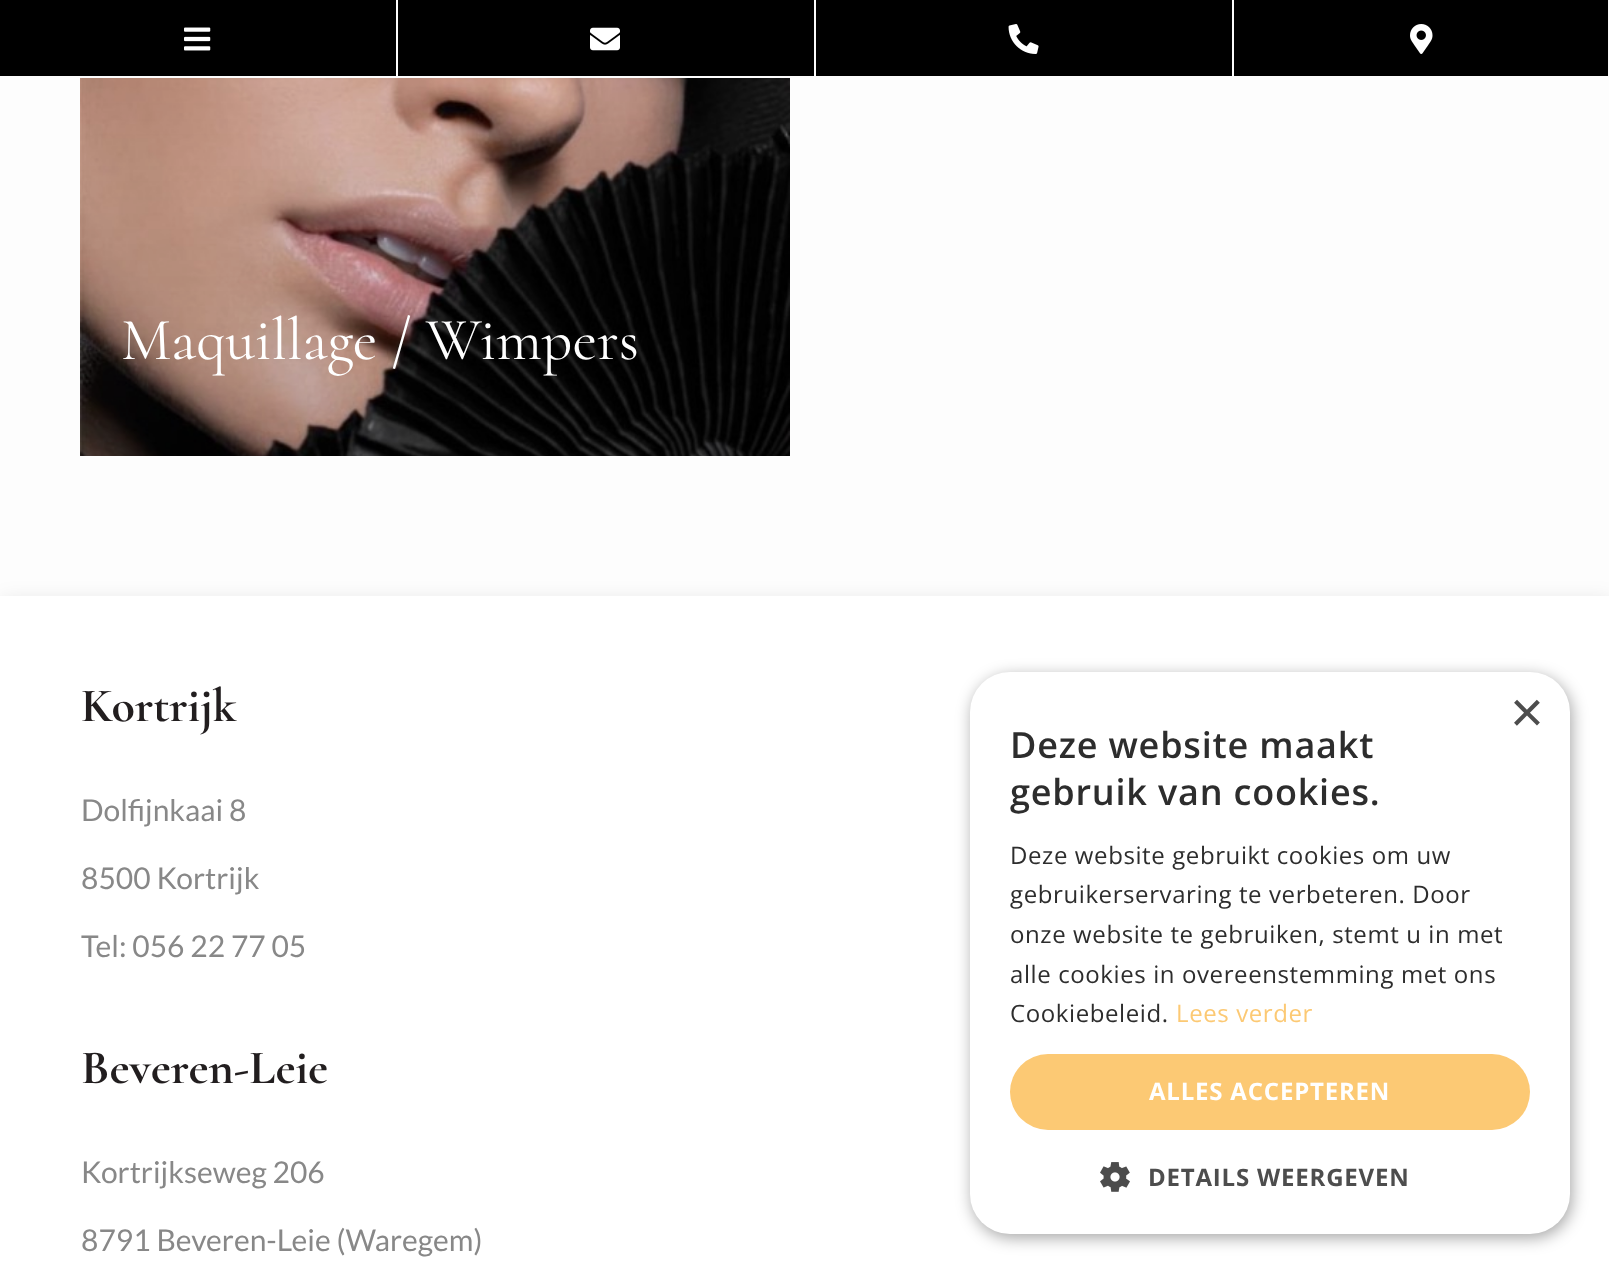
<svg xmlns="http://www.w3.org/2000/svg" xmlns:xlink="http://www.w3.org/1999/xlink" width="1609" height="1274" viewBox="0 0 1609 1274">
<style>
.cls-1{font:60px Cormorant;fill:#ffffff}
.cls-2{font:bold 48px Cormorant;fill:#221e1f}
.cls-3{font:30px Lato;fill:#888888}
.cls-4{font:58px Liberation Sans;fill:#4d4d4d}
.cls-5{font:600 36px Open Sans;letter-spacing:0.8px;fill:#2d2d2d}
.cls-6{font:24px Open Sans;letter-spacing:0.6px;fill:#2d2d2d}
.cls-7{font:24px Open Sans;letter-spacing:0.6px;fill:#fcc974}
.cls-8{font:bold 24px Open Sans;letter-spacing:0.8px;fill:#ffffff}
.cls-9{font:bold 24px Open Sans;letter-spacing:0.8px;fill:#4d4d4d}
</style>
<rect width="100%" height="100%" fill="#fdfdfd"/>
<rect fill="#000000" x="0" y="0" width="396" height="76"/>
<image xlink:href="image0.png" x="184" y="27" width="27" height="24"/>
<rect fill="#000000" x="398" y="0" width="416" height="76"/>
<image xlink:href="image1.png" x="590" y="27" width="30" height="24"/>
<rect fill="#000000" x="816" y="0" width="416" height="76"/>
<image xlink:href="image2.png" x="1008" y="24" width="31" height="30"/>
<rect fill="#000000" x="1234" y="0" width="374" height="76"/>
<image xlink:href="image3.png" x="1410" y="24" width="23" height="30"/>
<image xlink:href="image4.png" x="80" y="78" width="710" height="378"/>
<rect fill="#000000" fill-opacity="0.1" filter="blur(10px)" x="2" y="600" width="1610" height="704"/>
<rect fill="#ffffff" x="0" y="596" width="1609" height="678"/>
<rect fill="#000000" fill-opacity="0.35" filter="blur(8px)" x="972" y="676" width="600" height="562" rx="40"/>
<rect fill="#ffffff" x="970" y="672" width="600" height="562" rx="40"/>
<rect fill="#fcc974" x="1010" y="1054" width="520" height="76" rx="38"/>
<image xlink:href="image5.png" x="1100" y="1162" width="30" height="30"/>
<text class="cls-1" x="121" y="359">Maquillage / Wimpers</text>
<text class="cls-2" x="81" y="721">Kortrijk</text>
<text class="cls-3" x="81" y="821">Dolfijnkaai 8</text>
<text class="cls-3" x="81" y="889">8500 Kortrijk</text>
<text class="cls-3" x="81" y="957">Tel: 056 22 77 05</text>
<text class="cls-2" x="81" y="1083">Beveren-Leie</text>
<text class="cls-3" x="81" y="1183">Kortrijkseweg 206</text>
<text class="cls-3" x="81" y="1251">8791 Beveren-Leie (Waregem)</text>
<text class="cls-4" x="1510" y="732">×</text>
<text class="cls-5"><tspan x="1010" y="758">Deze website maakt</tspan><tspan x="1010" y="805">gebruik van cookies.</tspan></text>
<text class="cls-6"><tspan x="1010" y="864">Deze website gebruikt cookies om uw</tspan><tspan x="1010" y="903">gebruikerservaring te verbeteren. Door</tspan><tspan x="1010" y="943">onze website te gebruiken, stemt u in met</tspan><tspan x="1010" y="983">alle cookies in overeenstemming met ons</tspan><tspan x="1010" y="1022">Cookiebeleid.</tspan></text>
<text class="cls-7" x="1176" y="1022">Lees verder</text>
<text class="cls-8" x="1149" y="1100">ALLES ACCEPTEREN</text>
<text class="cls-9" x="1148" y="1186">DETAILS WEERGEVEN</text>
</svg>
